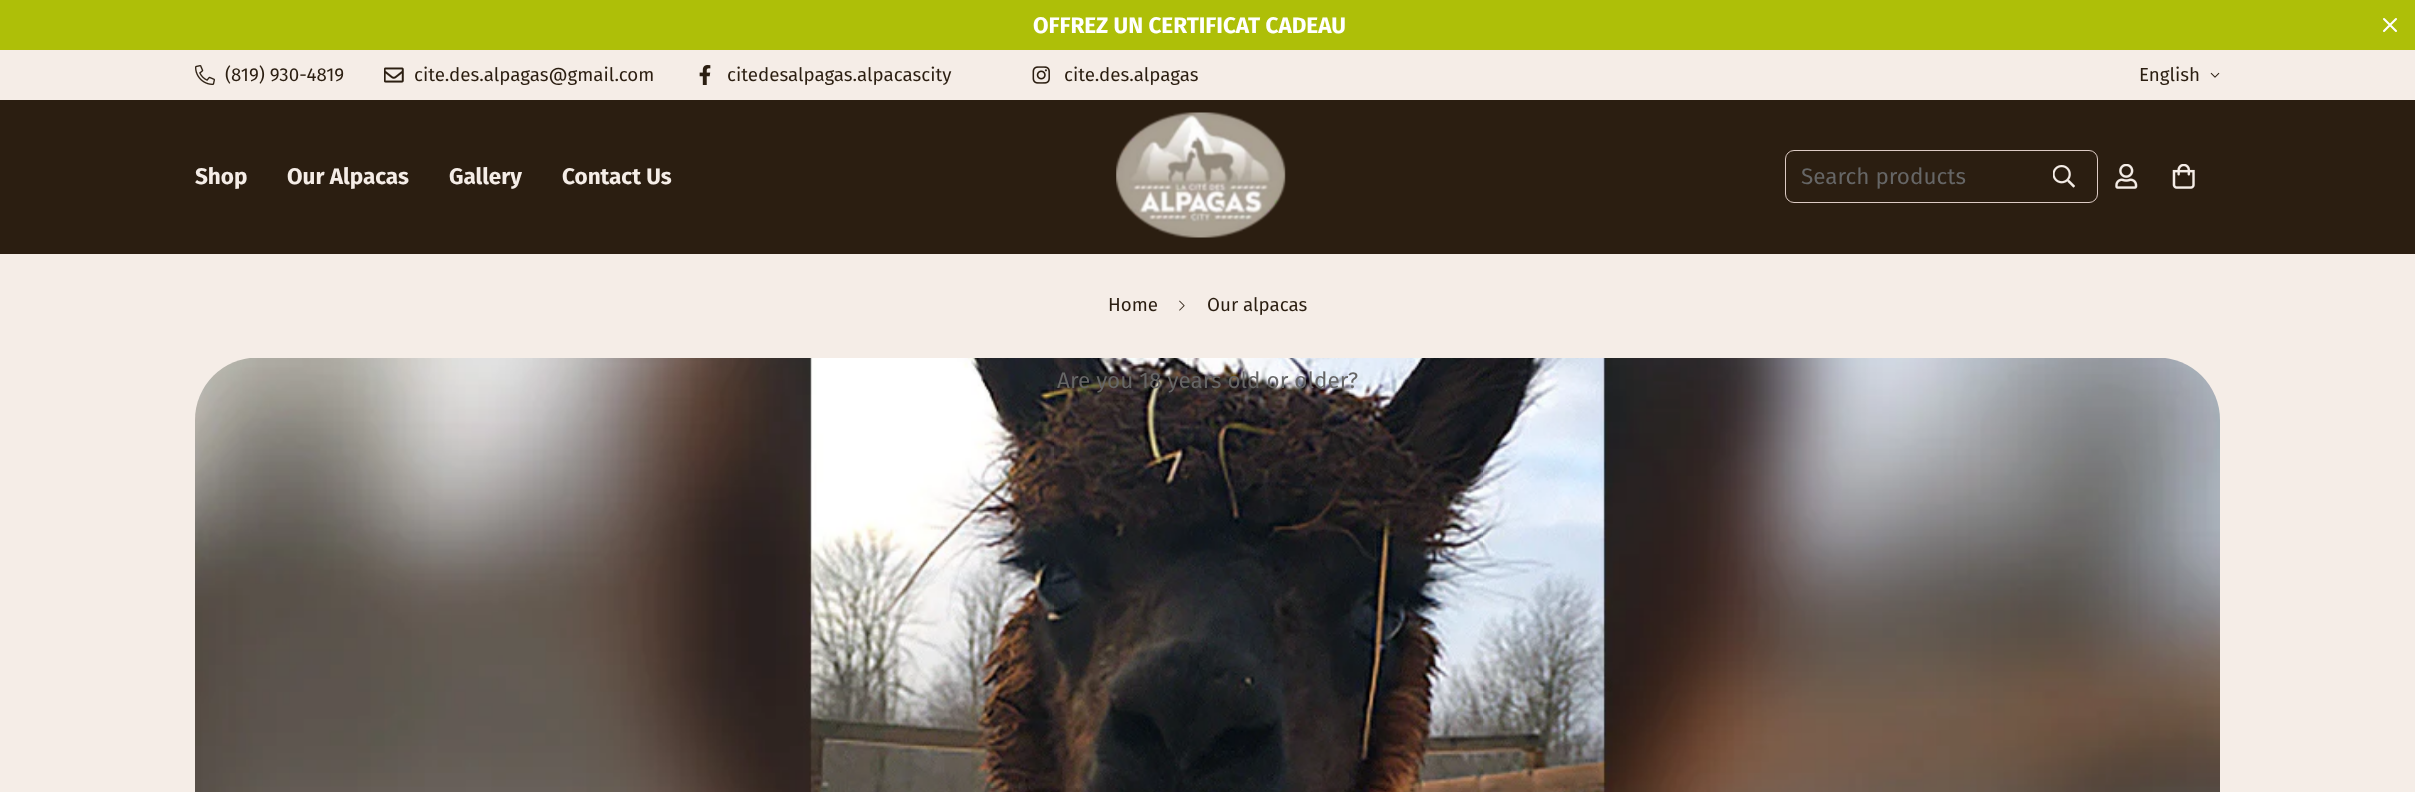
<svg xmlns="http://www.w3.org/2000/svg" xmlns:xlink="http://www.w3.org/1999/xlink" width="2415" height="792" viewBox="0 0 2415 792">
<style>
.cls-1{font:bold 22.5px Fira Sans;fill:#ffffff}
.cls-2{font:18.75px Fira Sans;fill:#2b1e11}
.cls-3{font:bold 22.5px Fira Sans;fill:#f5ede7}
.cls-4{font:22.5px Fira Sans;fill:#666666}
</style>
<rect width="100%" height="100%" fill="#f5ede7"/>
<rect fill="#aebf08" x="0" y="0" width="2415" height="50"/>
<path fill="none" stroke="#ffffff" stroke-width="2.1" stroke-linecap="round" stroke-linejoin="round" d="M2384 31L2396 19M2384 19L2396 31"/>
<image xlink:href="image0.png" x="195" y="65" width="20" height="20"/>
<image xlink:href="image1.png" x="384" y="67" width="20" height="16"/>
<image xlink:href="image2.png" x="699" y="65" width="12" height="20"/>
<image xlink:href="image3.png" x="1032" y="66" width="18" height="18"/>
<image xlink:href="image4.png" x="2210" y="72" width="10" height="6"/>
<rect fill="#2b1e11" x="0" y="100" width="2415" height="154"/>
<image xlink:href="image5.png" x="1116" y="112" width="170" height="126"/>
<rect fill="none" stroke="#ddcbc5" x="1785.5" y="150.5" width="312" height="52" rx="8.5"/>
<image xlink:href="image6.png" x="2053" y="165" width="22" height="23"/>
<image xlink:href="image7.png" x="2115" y="164" width="23" height="25"/>
<image xlink:href="image8.png" x="2172" y="164" width="23" height="25"/>
<image xlink:href="image9.png" x="1179" y="300" width="6" height="11"/>
<image xlink:href="image10.png" x="195" y="358" width="2025" height="434"/>
<text class="cls-1" x="1033" y="33">OFFREZ UN CERTIFICAT CADEAU</text>
<text class="cls-2" x="225" y="81">(819) 930-4819</text>
<text class="cls-2" x="414" y="81">cite.des.alpagas@gmail.com</text>
<text class="cls-2" x="727" y="81">citedesalpagas.alpacascity</text>
<text class="cls-2" x="1064" y="81">cite.des.alpagas</text>
<text class="cls-2" x="2139" y="81">English</text>
<text class="cls-3" x="195" y="184">Shop</text>
<text class="cls-3" x="287" y="184">Our Alpacas</text>
<text class="cls-3" x="449" y="184">Gallery</text>
<text class="cls-3" x="562" y="184">Contact Us</text>
<text class="cls-4" x="1801" y="184">Search products</text>
<text class="cls-2" x="1108" y="311">Home</text>
<text class="cls-2" x="1207" y="311">Our alpacas</text>
<text class="cls-4" x="1057" y="388">Are you 18 years old or older?</text>
</svg>
